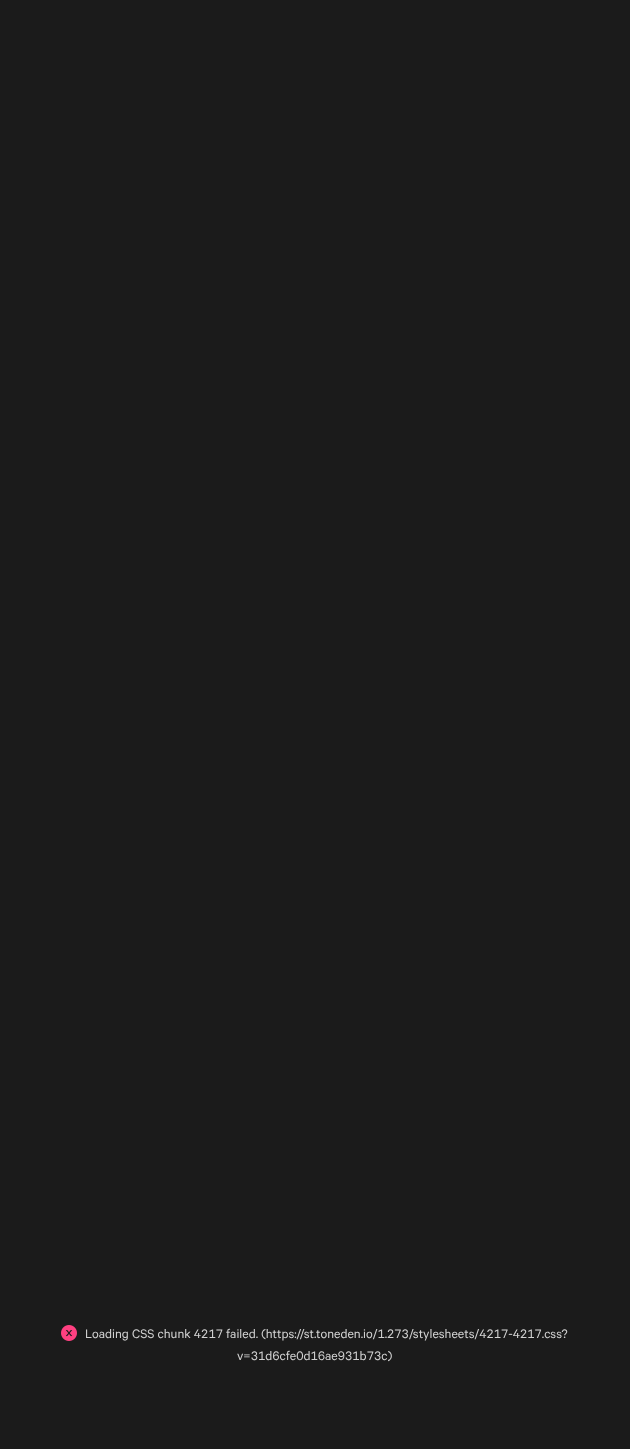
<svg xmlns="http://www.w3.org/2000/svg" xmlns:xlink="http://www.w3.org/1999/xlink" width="630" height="1449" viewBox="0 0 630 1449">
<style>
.cls-1{font:14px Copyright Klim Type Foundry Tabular;fill:#d1d1d1}
</style>
<rect width="100%" height="100%" fill="#1b1b1b"/>
<image xlink:href="image0.png" x="61" y="1325" width="16" height="16"/>
<text class="cls-1" x="85" y="1338">Loading CSS chunk 4217 failed. (https://st.toneden.io/1.273/stylesheets/4217-4217.css?</text>
<text class="cls-1" x="237" y="1360">v=31d6cfe0d16ae931b73c)</text>
</svg>
